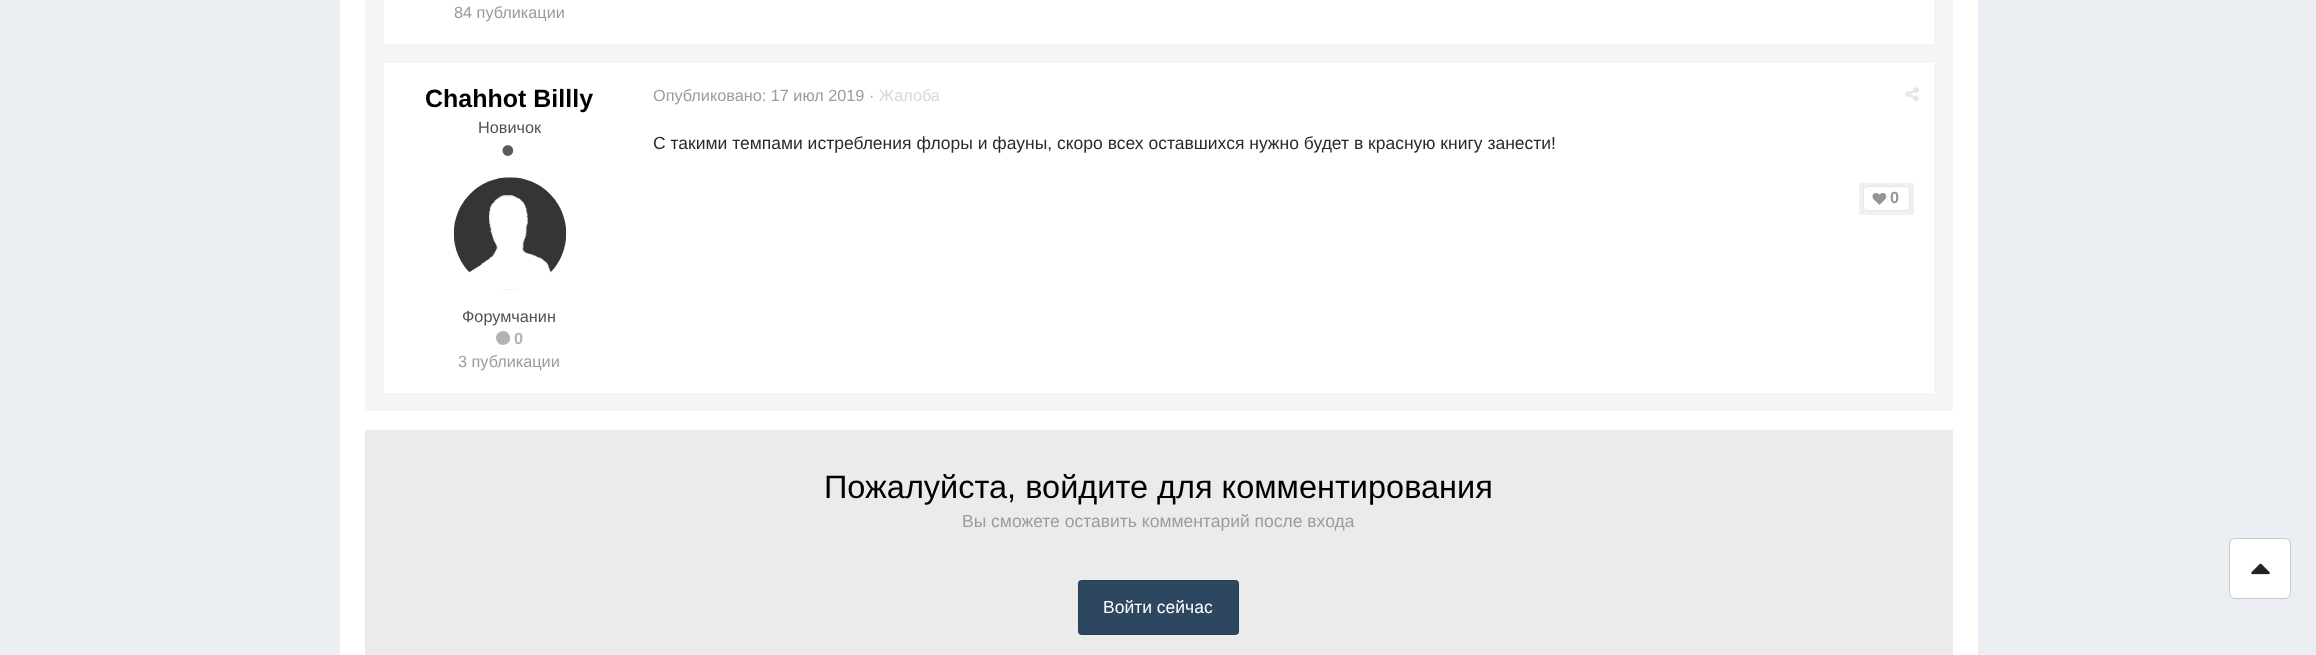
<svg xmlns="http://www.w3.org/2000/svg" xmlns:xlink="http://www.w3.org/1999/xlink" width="2316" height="655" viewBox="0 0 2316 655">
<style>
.cls-1{font:16.25px Liberation Sans;fill:#9c9c9c}
.cls-2{font:bold 25px Liberation Sans;fill:#000000}
.cls-3{font:16.25px Liberation Sans;fill:#525252}
.cls-4{font:bold 16.25px Liberation Sans;fill:#b3b3b3}
.cls-5{font:16.25px Liberation Sans;fill:#cedae4}
.cls-6{font:17.5px Liberation Sans;fill:#272a34}
.cls-7{font:bold 16.25px Liberation Sans;fill:#959595}
.cls-8{font:32.5px Liberation Sans;fill:#000000}
.cls-9{font:17.5px Liberation Sans;fill:#9c9c9c}
.cls-10{font:17.5px Liberation Sans;fill:#ffffff}
</style>
<rect width="100%" height="100%" fill="#ebeef2"/>
<rect fill="#ffffff" x="340" y="0" width="1638" height="655"/>
<rect fill="#f5f5f5" x="365" y="0" width="1588" height="411"/>
<rect fill="#ffffff" x="384" y="0" width="1550" height="44"/>
<rect fill="#ffffff" x="384" y="63" width="1550" height="330"/>
<image xlink:href="image0.png" x="502" y="145" width="12" height="11"/>
<image xlink:href="image1.png" x="453" y="177" width="114" height="113"/>
<path fill="#b3b3b3" d="M509 334.5C514 342.5 502 349.5 497 341.5C492.5 333.5 504.5 326.5 509 334.5Z"/>
<image xlink:href="image2.png" x="1905" y="87" width="14" height="14"/>
<rect fill="#f0f0f0" x="1859" y="183" width="55" height="32" rx="2.5"/>
<rect fill="#ffffff" x="1863" y="186" width="47" height="25" rx="4"/>
<rect fill="none" stroke="#000000" stroke-opacity="0.1" x="1863.5" y="186.5" width="46" height="24" rx="3.5"/>
<image xlink:href="image3.png" x="1872" y="193" width="15" height="12"/>
<rect fill="#ebebeb" x="365" y="430" width="1588" height="225"/>
<rect fill="#2d4760" x="1078" y="580" width="161" height="55" rx="4"/>
<rect fill="none" stroke="#000000" stroke-opacity="0.1" x="1078.5" y="580.5" width="160" height="54" rx="3.5"/>
<rect fill="#ffffff" stroke="#c9c9c9" x="2229.5" y="538.5" width="61" height="60" rx="5.5"/>
<image xlink:href="image4.png" x="2251" y="563" width="19" height="12"/>
<text class="cls-1" x="454" y="18">84 публикации</text>
<text class="cls-2" x="425" y="107">Chahhot Billly</text>
<text class="cls-3" x="478" y="133">Новичок</text>
<text class="cls-3" x="462" y="322">Форумчанин</text>
<text class="cls-4" x="514" y="344">0</text>
<text class="cls-1" x="458" y="367">3 публикации</text>
<text class="cls-1" x="653" y="101">Опубликовано: 17 июл 2019 ·</text>
<text class="cls-5" x="879" y="101">Жалоба</text>
<text class="cls-6" x="653" y="149">С такими темпами истребления флоры и фауны, скоро всех оставшихся нужно будет в красную книгу занести!</text>
<text class="cls-7" x="1890" y="203">0</text>
<text class="cls-8" x="824" y="498">Пожалуйста, войдите для комментирования</text>
<text class="cls-9" x="962" y="527">Вы сможете оставить комментарий после входа</text>
<text class="cls-10" x="1103" y="613">Войти сейчас</text>
</svg>
